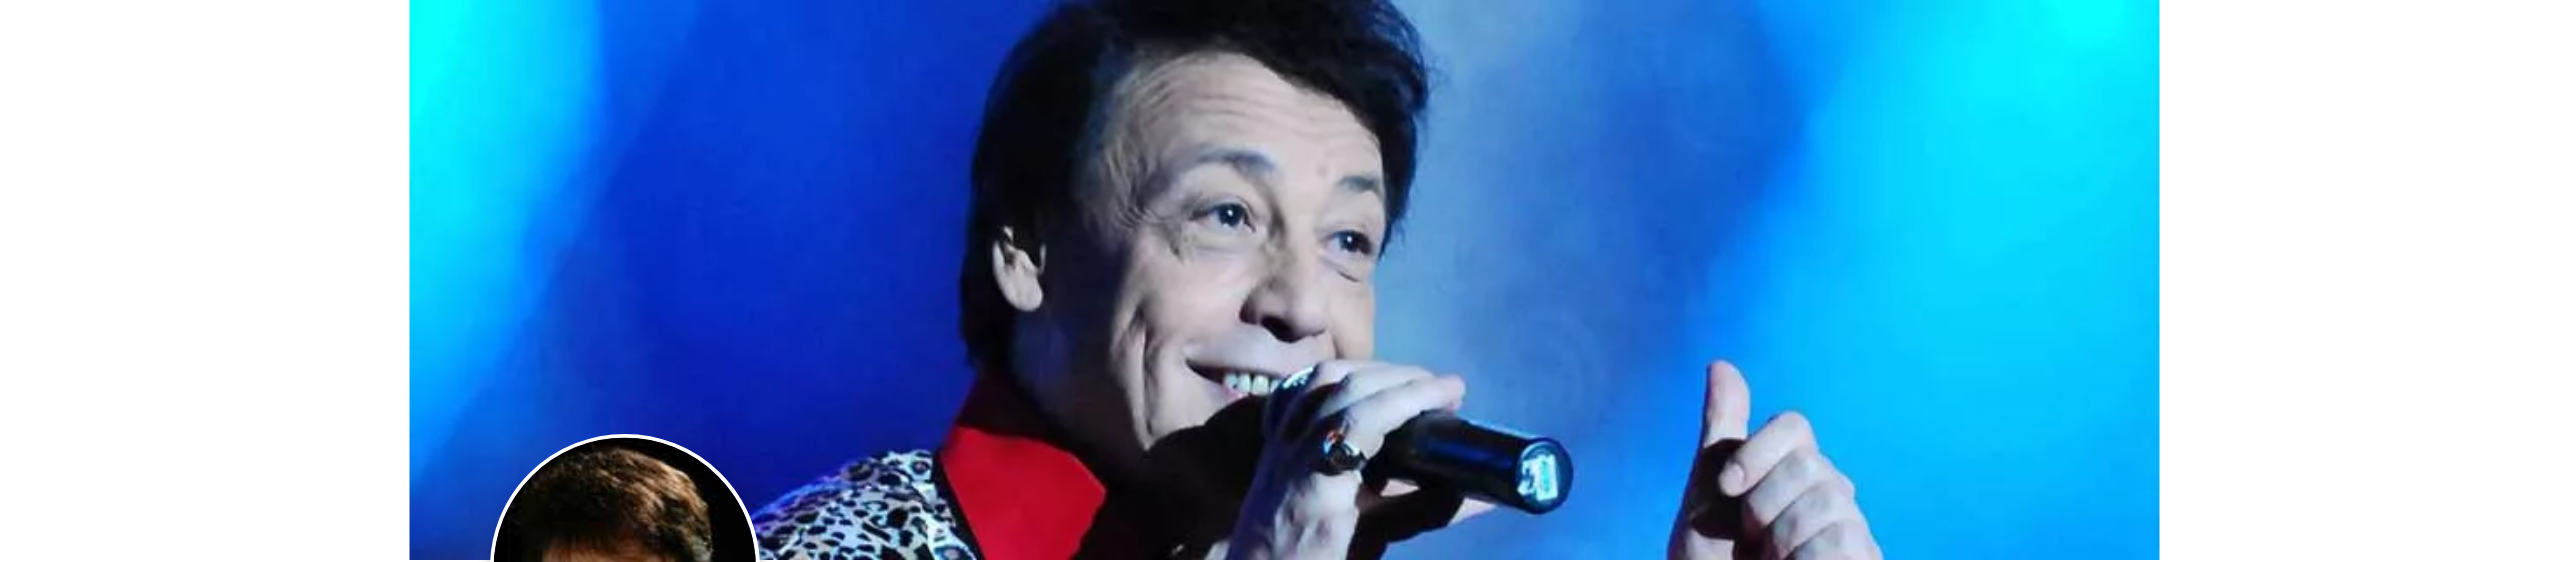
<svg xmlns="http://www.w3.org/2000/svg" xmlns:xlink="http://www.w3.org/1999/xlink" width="2568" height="562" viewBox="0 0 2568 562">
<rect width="100%" height="100%" fill="#ffffff"/>
<image xlink:href="image0.png" x="409" y="0" width="1751" height="560"/>
<rect fill="#000000" fill-opacity="0.3" filter="blur(7px)" x="490" y="448" width="270" height="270" rx="135"/>
<rect fill="none" stroke="#ffffff" stroke-width="4" x="492" y="436" width="266" height="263" rx="133"/>
<image xlink:href="image1.png" x="493" y="437" width="263" height="125"/>
</svg>
